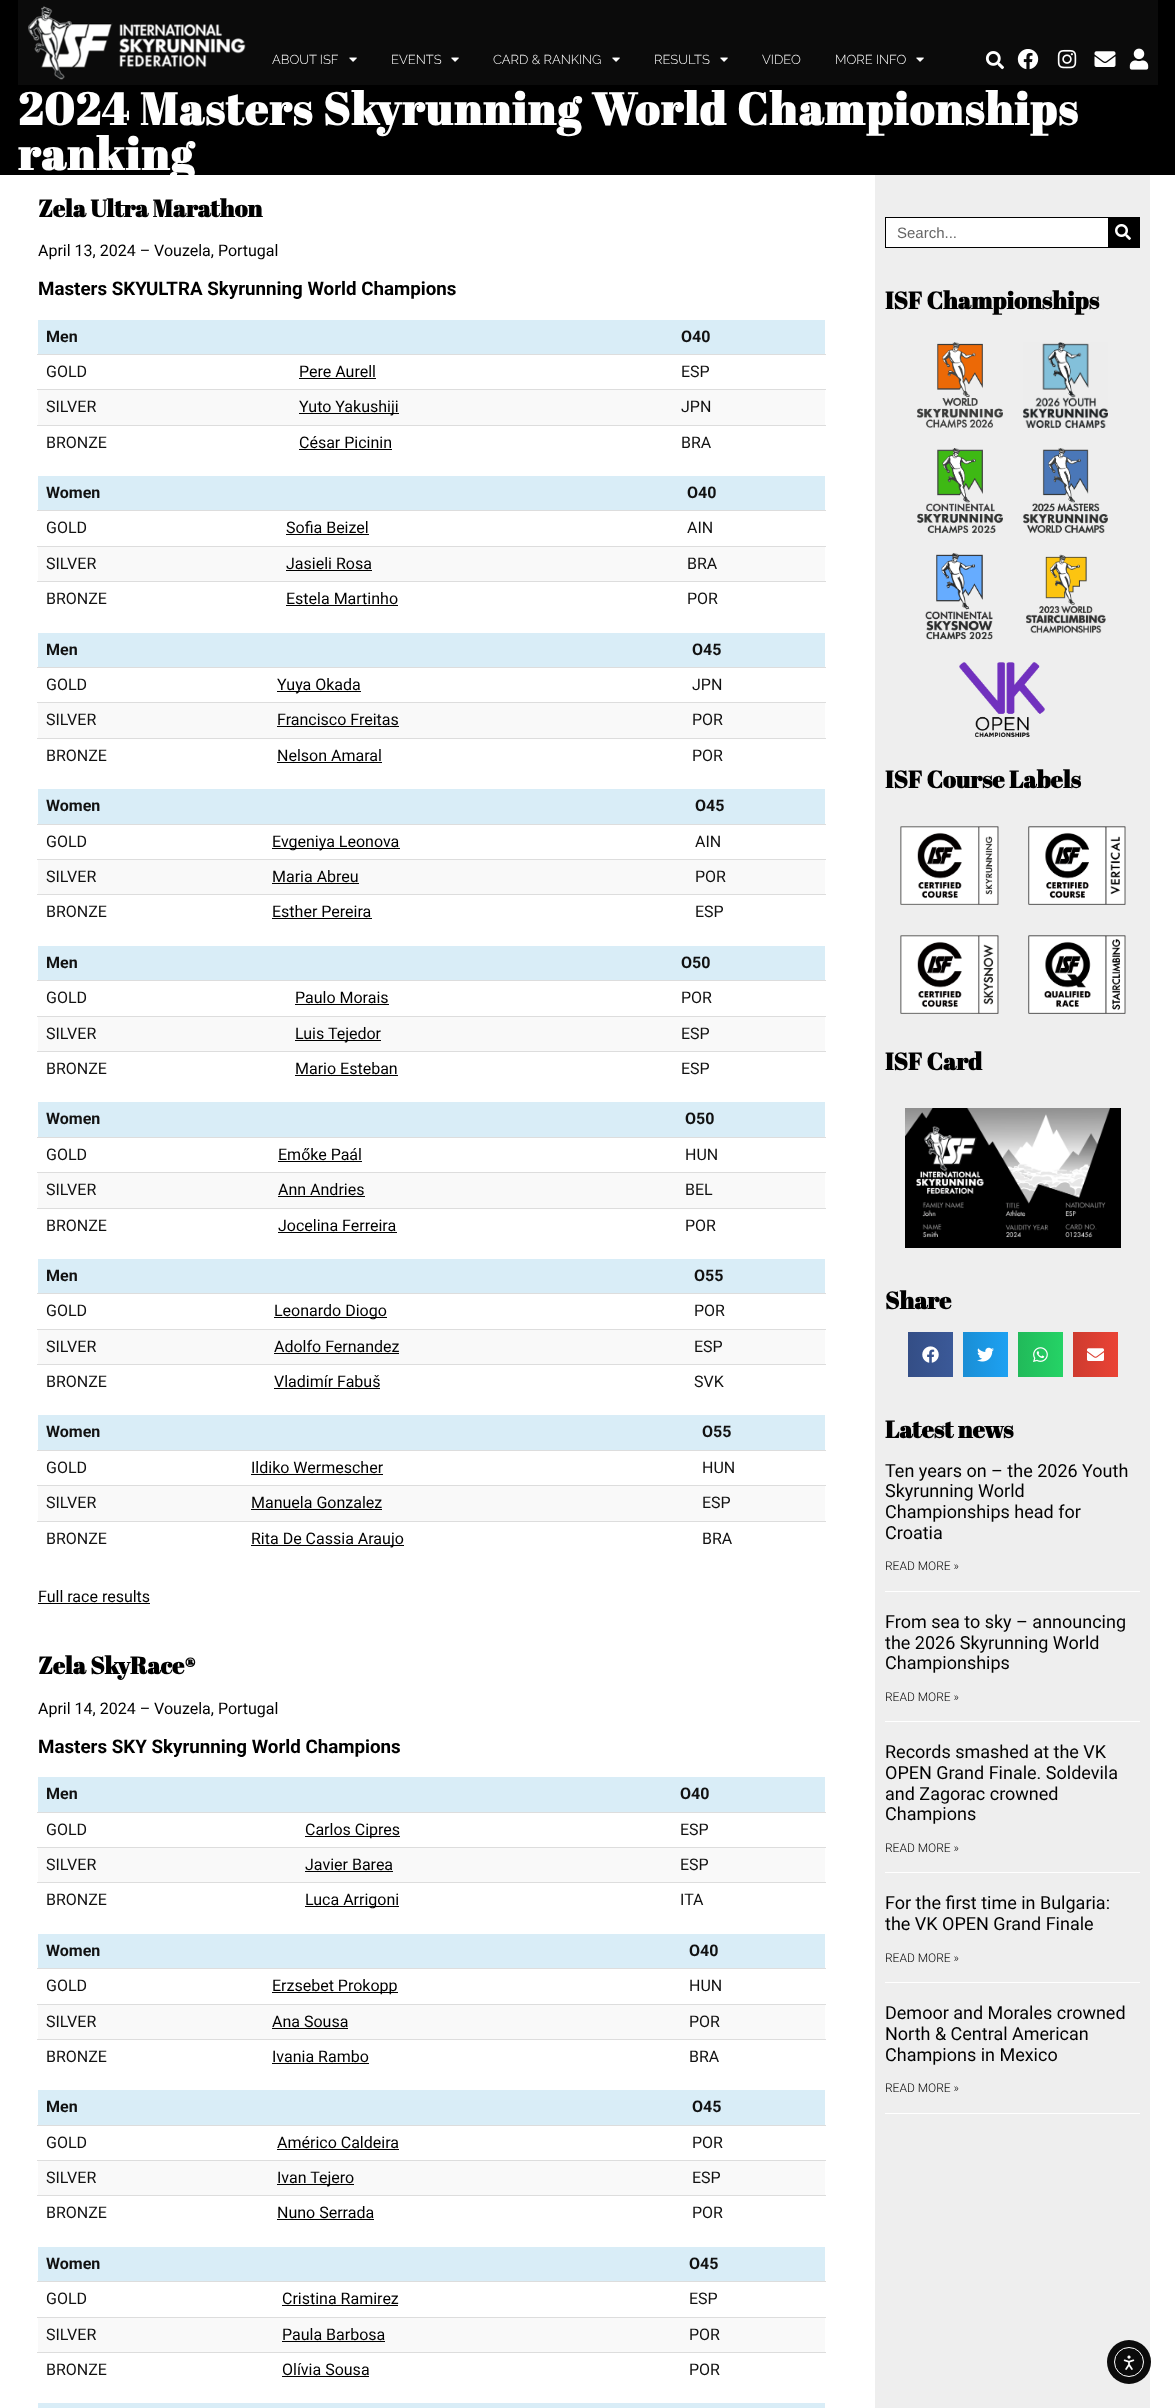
<!DOCTYPE html>
<meta charset="utf-8">
<style>body { margin: 0 } canvas { display: block }</style>
<canvas id="canvas" width="1175" height="2408"></canvas>
<script type="module">
  const canvas = document.getElementById("canvas");
  const ctx = canvas.getContext("2d");
  ctx.miterLimit = 4;
  ctx.fontKerning = "normal";
  async function loadImage(src) {
    const img = new Image();
    img.src = src;
    await img.decode();
    return img;
  }
  let gradient;

  ctx.fillStyle = "#ffffff";
  ctx.fillRect(0, 0, 1175, 2408);
  ctx.fillStyle = "#000000";
  ctx.fillRect(0, 0, 1175, 175);
  ctx.fillStyle = "#0b0b0b";
  ctx.fillRect(18, 0, 1140, 85);
  ctx.drawImage(await loadImage("img1.png"), 28, 6, 218, 74);
  ctx.font = "300 13px Raleway";
  ctx.fillStyle = "#ffffff";
  ctx.fillText("ABOUT ISF", 272, 64);
  ctx.drawImage(await loadImage("img2.png"), 349, 57, 8, 5);
  ctx.fillText("EVENTS", 391, 64);
  ctx.drawImage(await loadImage("img2.png"), 451, 57, 8, 5);
  ctx.fillText("CARD & RANKING", 493, 64);
  ctx.drawImage(await loadImage("img2.png"), 612, 57, 8, 5);
  ctx.fillText("RESULTS", 654, 64);
  ctx.drawImage(await loadImage("img2.png"), 720, 57, 8, 5);
  ctx.fillText("VIDEO", 762, 64);
  ctx.fillText("MORE INFO", 835, 64);
  ctx.drawImage(await loadImage("img2.png"), 916, 57, 8, 5);
  ctx.drawImage(await loadImage("img3.png"), 985, 51, 19, 19);
  ctx.drawImage(await loadImage("img4.png"), 1017, 49, 22, 21);
  ctx.drawImage(await loadImage("img5.png"), 1057, 49, 20, 20);
  ctx.drawImage(await loadImage("img6.png"), 1094, 51, 22, 16);
  ctx.drawImage(await loadImage("img7.png"), 1129, 48, 20, 22);
  ctx.letterSpacing = "1.4px";
  ctx.font = "bold 45px Abril Fatface";
  ctx.fillText("2024 Masters Skyrunning World Championships", 18, 125);
  ctx.fillText("ranking", 18, 170);
  ctx.letterSpacing = "0px";
  ctx.font = "bold 24px Abril Fatface";
  ctx.fillStyle = "#000000";
  ctx.fillText("Zela Ultra Marathon", 38, 217);
  ctx.font = "16px Roboto";
  ctx.fillText("April 13, 2024 – Vouzela, Portugal", 38, 256);
  ctx.font = "bold 18.75px Roboto";
  ctx.fillText("Masters SKYULTRA Skyrunning World Champions", 38, 295);
  ctx.fillStyle = "#d9edf7";
  ctx.fillRect(38, 320, 787, 34);
  ctx.font = "bold 16px Roboto";
  ctx.fillStyle = "#111111";
  ctx.fillText("Men", 46, 342);
  ctx.fillText("O40", 681, 342);
  ctx.font = "16px Roboto";
  ctx.fillText("GOLD", 46, 377);
  ctx.fillStyle = "#000000";
  ctx.fillText("Pere Aurell", 299, 377);
  ctx.fillRect(299, 378, 77, 1);
  ctx.fillStyle = "#dddddd";
  ctx.fillRect(37, 354, 789, 1);
  ctx.fillStyle = "#111111";
  ctx.fillText("ESP", 681, 377);
  ctx.fillStyle = "#f9f9f9";
  ctx.fillRect(38, 390, 787, 35);
  ctx.fillStyle = "#111111";
  ctx.fillText("SILVER", 46, 412);
  ctx.fillStyle = "#000000";
  ctx.fillRect(299, 413, 100, 1);
  ctx.fillText("Yuto Yakushiji", 299, 412);
  ctx.fillStyle = "#dddddd";
  ctx.fillRect(37, 389, 789, 1);
  ctx.fillStyle = "#111111";
  ctx.fillText("JPN", 681, 412);
  ctx.fillText("BRONZE", 46, 448);
  ctx.fillStyle = "#000000";
  ctx.fillText("César Picinin", 299, 448);
  ctx.fillRect(299, 449, 93, 1);
  ctx.fillStyle = "#dddddd";
  ctx.fillRect(37, 425, 789, 1);
  ctx.fillStyle = "#111111";
  ctx.fillText("BRA", 681, 448);
  ctx.fillStyle = "#d9edf7";
  ctx.fillRect(38, 476, 787, 34);
  ctx.font = "bold 16px Roboto";
  ctx.fillStyle = "#111111";
  ctx.fillText("Women", 46, 498);
  ctx.fillText("O40", 687, 498);
  ctx.font = "16px Roboto";
  ctx.fillText("GOLD", 46, 533);
  ctx.fillStyle = "#000000";
  ctx.fillText("Sofia Beizel", 286, 533);
  ctx.fillRect(286, 534, 83, 1);
  ctx.fillStyle = "#dddddd";
  ctx.fillRect(37, 510, 789, 1);
  ctx.fillStyle = "#111111";
  ctx.fillText("AIN", 687, 533);
  ctx.fillStyle = "#f9f9f9";
  ctx.fillRect(38, 547, 787, 34);
  ctx.fillStyle = "#111111";
  ctx.fillText("SILVER", 46, 569);
  ctx.fillStyle = "#000000";
  ctx.fillText("Jasieli Rosa", 286, 569);
  ctx.fillRect(286, 570, 86, 1);
  ctx.fillStyle = "#dddddd";
  ctx.fillRect(37, 546, 789, 1);
  ctx.fillStyle = "#111111";
  ctx.fillText("BRA", 687, 569);
  ctx.fillText("BRONZE", 46, 604);
  ctx.fillStyle = "#000000";
  ctx.fillText("Estela Martinho", 286, 604);
  ctx.fillRect(286, 605, 112, 1);
  ctx.fillStyle = "#dddddd";
  ctx.fillRect(37, 581, 789, 1);
  ctx.fillStyle = "#111111";
  ctx.fillText("POR", 687, 604);
  ctx.fillStyle = "#d9edf7";
  ctx.fillRect(38, 633, 787, 34);
  ctx.font = "bold 16px Roboto";
  ctx.fillStyle = "#111111";
  ctx.fillText("Men", 46, 655);
  ctx.fillText("O45", 692, 655);
  ctx.font = "16px Roboto";
  ctx.fillText("GOLD", 46, 690);
  ctx.fillStyle = "#000000";
  ctx.fillRect(277, 691, 84, 1);
  ctx.fillText("Yuya Okada", 277, 690);
  ctx.fillStyle = "#dddddd";
  ctx.fillRect(37, 667, 789, 1);
  ctx.fillStyle = "#111111";
  ctx.fillText("JPN", 692, 690);
  ctx.fillStyle = "#f9f9f9";
  ctx.fillRect(38, 703, 787, 35);
  ctx.fillStyle = "#111111";
  ctx.fillText("SILVER", 46, 725);
  ctx.fillStyle = "#000000";
  ctx.fillText("Francisco Freitas", 277, 725);
  ctx.fillRect(277, 726, 122, 1);
  ctx.fillStyle = "#dddddd";
  ctx.fillRect(37, 702, 789, 1);
  ctx.fillStyle = "#111111";
  ctx.fillText("POR", 692, 725);
  ctx.fillText("BRONZE", 46, 761);
  ctx.fillStyle = "#000000";
  ctx.fillText("Nelson Amaral", 277, 761);
  ctx.fillRect(277, 762, 105, 1);
  ctx.fillStyle = "#dddddd";
  ctx.fillRect(37, 738, 789, 1);
  ctx.fillStyle = "#111111";
  ctx.fillText("POR", 692, 761);
  ctx.fillStyle = "#d9edf7";
  ctx.fillRect(38, 789, 787, 35);
  ctx.font = "bold 16px Roboto";
  ctx.fillStyle = "#111111";
  ctx.fillText("Women", 46, 811);
  ctx.fillText("O45", 695, 811);
  ctx.font = "16px Roboto";
  ctx.fillText("GOLD", 46, 847);
  ctx.fillStyle = "#000000";
  ctx.fillRect(272, 848, 128, 1);
  ctx.fillText("Evgeniya Leonova", 272, 847);
  ctx.fillStyle = "#dddddd";
  ctx.fillRect(37, 824, 789, 1);
  ctx.fillStyle = "#111111";
  ctx.fillText("AIN", 695, 847);
  ctx.fillStyle = "#f9f9f9";
  ctx.fillRect(38, 860, 787, 34);
  ctx.fillStyle = "#111111";
  ctx.fillText("SILVER", 46, 882);
  ctx.fillStyle = "#000000";
  ctx.fillText("Maria Abreu", 272, 882);
  ctx.fillRect(272, 883, 87, 1);
  ctx.fillStyle = "#dddddd";
  ctx.fillRect(37, 859, 789, 1);
  ctx.fillStyle = "#111111";
  ctx.fillText("POR", 695, 882);
  ctx.fillText("BRONZE", 46, 917);
  ctx.fillStyle = "#000000";
  ctx.fillText("Esther Pereira", 272, 917);
  ctx.fillRect(272, 918, 100, 1);
  ctx.fillStyle = "#dddddd";
  ctx.fillRect(37, 894, 789, 1);
  ctx.fillStyle = "#111111";
  ctx.fillText("ESP", 695, 917);
  ctx.fillStyle = "#d9edf7";
  ctx.fillRect(38, 946, 787, 34);
  ctx.font = "bold 16px Roboto";
  ctx.fillStyle = "#111111";
  ctx.fillText("Men", 46, 968);
  ctx.fillText("O50", 681, 968);
  ctx.font = "16px Roboto";
  ctx.fillText("GOLD", 46, 1003);
  ctx.fillStyle = "#000000";
  ctx.fillText("Paulo Morais", 295, 1003);
  ctx.fillRect(295, 1004, 94, 1);
  ctx.fillStyle = "#dddddd";
  ctx.fillRect(37, 980, 789, 1);
  ctx.fillStyle = "#111111";
  ctx.fillText("POR", 681, 1003);
  ctx.fillStyle = "#f9f9f9";
  ctx.fillRect(38, 1017, 787, 34);
  ctx.fillStyle = "#111111";
  ctx.fillText("SILVER", 46, 1039);
  ctx.fillStyle = "#000000";
  ctx.fillRect(295, 1040, 86, 1);
  ctx.fillText("Luis Tejedor", 295, 1039);
  ctx.fillStyle = "#dddddd";
  ctx.fillRect(37, 1016, 789, 1);
  ctx.fillStyle = "#111111";
  ctx.fillText("ESP", 681, 1039);
  ctx.fillText("BRONZE", 46, 1074);
  ctx.fillStyle = "#000000";
  ctx.fillText("Mario Esteban", 295, 1074);
  ctx.fillRect(295, 1075, 103, 1);
  ctx.fillStyle = "#dddddd";
  ctx.fillRect(37, 1051, 789, 1);
  ctx.fillStyle = "#111111";
  ctx.fillText("ESP", 681, 1074);
  ctx.fillStyle = "#d9edf7";
  ctx.fillRect(38, 1102, 787, 35);
  ctx.font = "bold 16px Roboto";
  ctx.fillStyle = "#111111";
  ctx.fillText("Women", 46, 1124);
  ctx.fillText("O50", 685, 1124);
  ctx.font = "16px Roboto";
  ctx.fillText("GOLD", 46, 1160);
  ctx.fillStyle = "#000000";
  ctx.fillText("Emőke Paál", 278, 1160);
  ctx.fillRect(278, 1161, 84, 1);
  ctx.fillStyle = "#dddddd";
  ctx.fillRect(37, 1137, 789, 1);
  ctx.fillStyle = "#111111";
  ctx.fillText("HUN", 685, 1160);
  ctx.fillStyle = "#f9f9f9";
  ctx.fillRect(38, 1173, 787, 35);
  ctx.fillStyle = "#111111";
  ctx.fillText("SILVER", 46, 1195);
  ctx.fillStyle = "#000000";
  ctx.fillText("Ann Andries", 278, 1195);
  ctx.fillRect(278, 1196, 87, 1);
  ctx.fillStyle = "#dddddd";
  ctx.fillRect(37, 1172, 789, 1);
  ctx.fillStyle = "#111111";
  ctx.fillText("BEL", 685, 1195);
  ctx.fillText("BRONZE", 46, 1231);
  ctx.fillStyle = "#000000";
  ctx.fillText("Jocelina Ferreira", 278, 1231);
  ctx.fillRect(278, 1232, 119, 1);
  ctx.fillStyle = "#dddddd";
  ctx.fillRect(37, 1208, 789, 1);
  ctx.fillStyle = "#111111";
  ctx.fillText("POR", 685, 1231);
  ctx.fillStyle = "#d9edf7";
  ctx.fillRect(38, 1259, 787, 34);
  ctx.font = "bold 16px Roboto";
  ctx.fillStyle = "#111111";
  ctx.fillText("Men", 46, 1281);
  ctx.fillText("O55", 694, 1281);
  ctx.font = "16px Roboto";
  ctx.fillText("GOLD", 46, 1316);
  ctx.fillStyle = "#000000";
  ctx.fillRect(274, 1317, 113, 1);
  ctx.fillText("Leonardo Diogo", 274, 1316);
  ctx.fillStyle = "#dddddd";
  ctx.fillRect(37, 1293, 789, 1);
  ctx.fillStyle = "#111111";
  ctx.fillText("POR", 694, 1316);
  ctx.fillStyle = "#f9f9f9";
  ctx.fillRect(38, 1330, 787, 34);
  ctx.fillStyle = "#111111";
  ctx.fillText("SILVER", 46, 1352);
  ctx.fillStyle = "#000000";
  ctx.fillText("Adolfo Fernandez", 274, 1352);
  ctx.fillRect(274, 1353, 125, 1);
  ctx.fillStyle = "#dddddd";
  ctx.fillRect(37, 1329, 789, 1);
  ctx.fillStyle = "#111111";
  ctx.fillText("ESP", 694, 1352);
  ctx.fillText("BRONZE", 46, 1387);
  ctx.fillStyle = "#000000";
  ctx.fillText("Vladimír Fabuš", 274, 1387);
  ctx.fillRect(274, 1388, 106, 1);
  ctx.fillStyle = "#dddddd";
  ctx.fillRect(37, 1364, 789, 1);
  ctx.fillStyle = "#111111";
  ctx.fillText("SVK", 694, 1387);
  ctx.fillStyle = "#d9edf7";
  ctx.fillRect(38, 1415, 787, 35);
  ctx.font = "bold 16px Roboto";
  ctx.fillStyle = "#111111";
  ctx.fillText("Women", 46, 1437);
  ctx.fillText("O55", 702, 1437);
  ctx.font = "16px Roboto";
  ctx.fillText("GOLD", 46, 1473);
  ctx.fillStyle = "#000000";
  ctx.fillText("Ildiko Wermescher", 251, 1473);
  ctx.fillRect(251, 1474, 132, 1);
  ctx.fillStyle = "#dddddd";
  ctx.fillRect(37, 1450, 789, 1);
  ctx.fillStyle = "#111111";
  ctx.fillText("HUN", 702, 1473);
  ctx.fillStyle = "#f9f9f9";
  ctx.fillRect(38, 1486, 787, 35);
  ctx.fillStyle = "#111111";
  ctx.fillText("SILVER", 46, 1508);
  ctx.fillStyle = "#000000";
  ctx.fillText("Manuela Gonzalez", 251, 1508);
  ctx.fillRect(251, 1509, 131, 1);
  ctx.fillStyle = "#dddddd";
  ctx.fillRect(37, 1485, 789, 1);
  ctx.fillStyle = "#111111";
  ctx.fillText("ESP", 702, 1508);
  ctx.fillText("BRONZE", 46, 1544);
  ctx.fillStyle = "#000000";
  ctx.fillRect(251, 1545, 153, 1);
  ctx.fillText("Rita De Cassia Araujo", 251, 1544);
  ctx.fillStyle = "#dddddd";
  ctx.fillRect(37, 1521, 789, 1);
  ctx.fillStyle = "#111111";
  ctx.fillText("BRA", 702, 1544);
  ctx.fillStyle = "#000000";
  ctx.fillText("Full race results", 38, 1602);
  ctx.fillRect(38, 1603, 112, 1);
  ctx.font = "bold 24px Abril Fatface";
  ctx.fillText("Zela SkyRace®", 38, 1674);
  ctx.font = "16px Roboto";
  ctx.fillText("April 14, 2024 – Vouzela, Portugal", 38, 1714);
  ctx.font = "bold 18.75px Roboto";
  ctx.fillText("Masters SKY Skyrunning World Champions", 38, 1753);
  ctx.fillStyle = "#d9edf7";
  ctx.fillRect(38, 1777, 787, 35);
  ctx.font = "bold 16px Roboto";
  ctx.fillStyle = "#111111";
  ctx.fillText("Men", 46, 1799);
  ctx.fillText("O40", 680, 1799);
  ctx.font = "16px Roboto";
  ctx.fillText("GOLD", 46, 1835);
  ctx.fillStyle = "#000000";
  ctx.fillRect(305, 1836, 95, 1);
  ctx.fillText("Carlos Cipres", 305, 1835);
  ctx.fillStyle = "#dddddd";
  ctx.fillRect(37, 1812, 789, 1);
  ctx.fillStyle = "#111111";
  ctx.fillText("ESP", 680, 1835);
  ctx.fillStyle = "#f9f9f9";
  ctx.fillRect(38, 1848, 787, 34);
  ctx.fillStyle = "#111111";
  ctx.fillText("SILVER", 46, 1870);
  ctx.fillStyle = "#000000";
  ctx.fillText("Javier Barea", 305, 1870);
  ctx.fillRect(305, 1871, 88, 1);
  ctx.fillStyle = "#dddddd";
  ctx.fillRect(37, 1847, 789, 1);
  ctx.fillStyle = "#111111";
  ctx.fillText("ESP", 680, 1870);
  ctx.fillText("BRONZE", 46, 1905);
  ctx.fillStyle = "#000000";
  ctx.fillRect(305, 1906, 94, 1);
  ctx.fillText("Luca Arrigoni", 305, 1905);
  ctx.fillStyle = "#dddddd";
  ctx.fillRect(37, 1882, 789, 1);
  ctx.fillStyle = "#111111";
  ctx.fillText("ITA", 680, 1905);
  ctx.fillStyle = "#d9edf7";
  ctx.fillRect(38, 1934, 787, 34);
  ctx.font = "bold 16px Roboto";
  ctx.fillStyle = "#111111";
  ctx.fillText("Women", 46, 1956);
  ctx.fillText("O40", 689, 1956);
  ctx.font = "16px Roboto";
  ctx.fillText("GOLD", 46, 1991);
  ctx.fillStyle = "#000000";
  ctx.fillRect(272, 1992, 126, 1);
  ctx.fillText("Erzsebet Prokopp", 272, 1991);
  ctx.fillStyle = "#dddddd";
  ctx.fillRect(37, 1968, 789, 1);
  ctx.fillStyle = "#111111";
  ctx.fillText("HUN", 689, 1991);
  ctx.fillStyle = "#f9f9f9";
  ctx.fillRect(38, 2005, 787, 34);
  ctx.fillStyle = "#111111";
  ctx.fillText("SILVER", 46, 2027);
  ctx.fillStyle = "#000000";
  ctx.fillText("Ana Sousa", 272, 2027);
  ctx.fillRect(272, 2028, 76, 1);
  ctx.fillStyle = "#dddddd";
  ctx.fillRect(37, 2004, 789, 1);
  ctx.fillStyle = "#111111";
  ctx.fillText("POR", 689, 2027);
  ctx.fillText("BRONZE", 46, 2062);
  ctx.fillStyle = "#000000";
  ctx.fillText("Ivania Rambo", 272, 2062);
  ctx.fillRect(272, 2063, 97, 1);
  ctx.fillStyle = "#dddddd";
  ctx.fillRect(37, 2039, 789, 1);
  ctx.fillStyle = "#111111";
  ctx.fillText("BRA", 689, 2062);
  ctx.fillStyle = "#d9edf7";
  ctx.fillRect(38, 2090, 787, 35);
  ctx.font = "bold 16px Roboto";
  ctx.fillStyle = "#111111";
  ctx.fillText("Men", 46, 2112);
  ctx.fillText("O45", 692, 2112);
  ctx.font = "16px Roboto";
  ctx.fillText("GOLD", 46, 2148);
  ctx.fillStyle = "#000000";
  ctx.fillText("Américo Caldeira", 277, 2148);
  ctx.fillRect(277, 2149, 122, 1);
  ctx.fillStyle = "#dddddd";
  ctx.fillRect(37, 2125, 789, 1);
  ctx.fillStyle = "#111111";
  ctx.fillText("POR", 692, 2148);
  ctx.fillStyle = "#f9f9f9";
  ctx.fillRect(38, 2161, 787, 34);
  ctx.fillStyle = "#111111";
  ctx.fillText("SILVER", 46, 2183);
  ctx.fillStyle = "#000000";
  ctx.fillRect(277, 2184, 77, 1);
  ctx.fillText("Ivan Tejero", 277, 2183);
  ctx.fillStyle = "#dddddd";
  ctx.fillRect(37, 2160, 789, 1);
  ctx.fillStyle = "#111111";
  ctx.fillText("ESP", 692, 2183);
  ctx.fillText("BRONZE", 46, 2218);
  ctx.fillStyle = "#000000";
  ctx.fillText("Nuno Serrada", 277, 2218);
  ctx.fillRect(277, 2219, 97, 1);
  ctx.fillStyle = "#dddddd";
  ctx.fillRect(37, 2195, 789, 1);
  ctx.fillStyle = "#111111";
  ctx.fillText("POR", 692, 2218);
  ctx.fillStyle = "#d9edf7";
  ctx.fillRect(38, 2247, 787, 34);
  ctx.font = "bold 16px Roboto";
  ctx.fillStyle = "#111111";
  ctx.fillText("Women", 46, 2269);
  ctx.fillText("O45", 689, 2269);
  ctx.font = "16px Roboto";
  ctx.fillText("GOLD", 46, 2304);
  ctx.fillStyle = "#000000";
  ctx.fillText("Cristina Ramirez", 282, 2304);
  ctx.fillRect(282, 2305, 116, 1);
  ctx.fillStyle = "#dddddd";
  ctx.fillRect(37, 2281, 789, 1);
  ctx.fillStyle = "#111111";
  ctx.fillText("ESP", 689, 2304);
  ctx.fillStyle = "#f9f9f9";
  ctx.fillRect(38, 2318, 787, 34);
  ctx.fillStyle = "#111111";
  ctx.fillText("SILVER", 46, 2340);
  ctx.fillStyle = "#000000";
  ctx.fillText("Paula Barbosa", 282, 2340);
  ctx.fillRect(282, 2341, 103, 1);
  ctx.fillStyle = "#dddddd";
  ctx.fillRect(37, 2317, 789, 1);
  ctx.fillStyle = "#111111";
  ctx.fillText("POR", 689, 2340);
  ctx.fillText("BRONZE", 46, 2375);
  ctx.fillStyle = "#000000";
  ctx.fillText("Olívia Sousa", 282, 2375);
  ctx.fillRect(282, 2376, 87, 1);
  ctx.fillStyle = "#dddddd";
  ctx.fillRect(37, 2352, 789, 1);
  ctx.fillStyle = "#111111";
  ctx.fillText("POR", 689, 2375);
  ctx.fillStyle = "#d9edf7";
  ctx.fillRect(38, 2403, 787, 5);
  ctx.fillStyle = "#eeeeee";
  ctx.fillRect(875, 175, 275, 2233);
  ctx.fillStyle = "#ffffff";
  ctx.fillRect(886, 218, 222, 29);
  ctx.strokeStyle = "#000000";
  ctx.strokeRect(885.5, 217.5, 254, 30);
  ctx.font = "15px Liberation Sans";
  ctx.fillStyle = "#666666";
  ctx.fillText("Search...", 897, 238);
  ctx.fillStyle = "#000000";
  ctx.fillRect(1108, 218, 31, 29);
  ctx.drawImage(await loadImage("img8.png"), 1115, 224, 16, 16);
  ctx.font = "bold 24px Abril Fatface";
  ctx.fillText("ISF Championships", 885, 309);
  ctx.drawImage(await loadImage("img9.png"), 917, 342, 86, 86);
  ctx.drawImage(await loadImage("img10.png"), 1023, 342, 85, 86);
  ctx.drawImage(await loadImage("img11.png"), 917, 448, 86, 85);
  ctx.drawImage(await loadImage("img12.png"), 1023, 448, 85, 85);
  ctx.drawImage(await loadImage("img13.png"), 925, 553, 68, 87);
  ctx.drawImage(await loadImage("img14.png"), 1026, 554, 80, 80);
  ctx.drawImage(await loadImage("img15.png"), 959, 662, 86, 75);
  ctx.fillText("ISF Course Labels", 885, 788);
  ctx.drawImage(await loadImage("img16.png"), 900, 826, 99, 79);
  ctx.drawImage(await loadImage("img17.png"), 1028, 826, 98, 79);
  ctx.drawImage(await loadImage("img18.png"), 900, 935, 99, 79);
  ctx.drawImage(await loadImage("img19.png"), 1028, 935, 98, 79);
  ctx.fillText("ISF Card", 885, 1070);
  ctx.drawImage(await loadImage("img20.png"), 905, 1108, 216, 140);
  ctx.fillText("Share", 885, 1309);
  gradient = ctx.createLinearGradient(908, 1355, 953, 1355);
  gradient.addColorStop(0, "#344e86");
  gradient.addColorStop(1, "#3b5998");
  ctx.fillStyle = gradient;
  ctx.fillRect(908, 1332, 45, 45);
  ctx.drawImage(await loadImage("img21.png"), 922, 1346, 17, 17);
  gradient = ctx.createLinearGradient(963, 1355, 1008, 1355);
  gradient.addColorStop(0, "#1a8ed5");
  gradient.addColorStop(1, "#1da1f2");
  ctx.fillStyle = gradient;
  ctx.fillRect(963, 1332, 45, 45);
  ctx.drawImage(await loadImage("img22.png"), 977, 1347, 17, 15);
  gradient = ctx.createLinearGradient(1018, 1355, 1063, 1355);
  gradient.addColorStop(0, "#21ba5a");
  gradient.addColorStop(1, "#25d366");
  ctx.fillStyle = gradient;
  ctx.fillRect(1018, 1332, 45, 45);
  ctx.drawImage(await loadImage("img23.png"), 1033, 1347, 15, 15);
  gradient = ctx.createLinearGradient(1073, 1355, 1118, 1355);
  gradient.addColorStop(0, "#ce3b2f");
  gradient.addColorStop(1, "#ea4335");
  ctx.fillStyle = gradient;
  ctx.fillRect(1073, 1332, 45, 45);
  ctx.drawImage(await loadImage("img24.png"), 1087, 1348, 17, 13);
  ctx.fillStyle = "#000000";
  ctx.fillText("Latest news", 885, 1438);
  ctx.fillStyle = "#ffffff";
  ctx.fillRect(885, 1591, 255, 1);
  ctx.font = "18px Roboto";
  ctx.fillStyle = "#000000";
  ctx.fillText("Ten years on – the 2026 Youth", 885, 1477);
  ctx.fillText("Skyrunning World", 885, 1497);
  ctx.fillText("Championships head for", 885, 1518);
  ctx.fillText("Croatia", 885, 1539);
  ctx.font = "300 12px Roboto";
  ctx.fillText("READ MORE »", 885, 1570);
  ctx.fillStyle = "#ffffff";
  ctx.fillRect(885, 1721, 255, 1);
  ctx.font = "18px Roboto";
  ctx.fillStyle = "#000000";
  ctx.fillText("From sea to sky – announcing", 885, 1628);
  ctx.fillText("the 2026 Skyrunning World", 885, 1649);
  ctx.fillText("Championships", 885, 1669);
  ctx.font = "300 12px Roboto";
  ctx.fillText("READ MORE »", 885, 1701);
  ctx.fillStyle = "#ffffff";
  ctx.fillRect(885, 1872, 255, 1);
  ctx.font = "18px Roboto";
  ctx.fillStyle = "#000000";
  ctx.fillText("Records smashed at the VK", 885, 1758);
  ctx.fillText("OPEN Grand Finale. Soldevila", 885, 1779);
  ctx.fillText("and Zagorac crowned", 885, 1800);
  ctx.fillText("Champions", 885, 1820);
  ctx.font = "300 12px Roboto";
  ctx.fillText("READ MORE »", 885, 1852);
  ctx.fillStyle = "#ffffff";
  ctx.fillRect(885, 1982, 255, 1);
  ctx.font = "18px Roboto";
  ctx.fillStyle = "#000000";
  ctx.fillText("For the first time in Bulgaria:", 885, 1909);
  ctx.fillText("the VK OPEN Grand Finale", 885, 1930);
  ctx.font = "300 12px Roboto";
  ctx.fillText("READ MORE »", 885, 1962);
  ctx.fillStyle = "#ffffff";
  ctx.fillRect(885, 2113, 255, 1);
  ctx.font = "18px Roboto";
  ctx.fillStyle = "#000000";
  ctx.fillText("Demoor and Morales crowned", 885, 2019);
  ctx.fillText("North & Central American", 885, 2040);
  ctx.fillText("Champions in Mexico", 885, 2061);
  ctx.font = "300 12px Roboto";
  ctx.fillText("READ MORE »", 885, 2092);
  ctx.fillStyle = "#0b0b0b";
  ctx.beginPath();
  ctx.arc(1129, 2362, 22, 0, Math.PI * 2);
  ctx.fill();
  ctx.beginPath();
  ctx.arc(1129, 2362, 14.5, 0, Math.PI * 2);
  ctx.strokeStyle = "#ffffff";
  ctx.stroke();
  ctx.drawImage(await loadImage("img25.png"), 1123, 2355, 12, 15);
</script>
